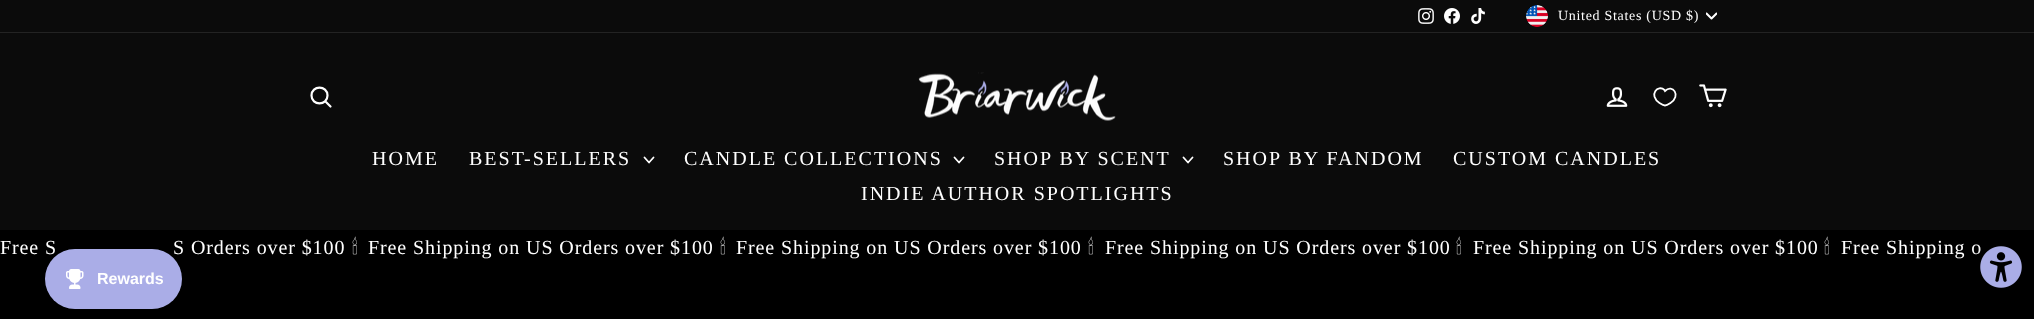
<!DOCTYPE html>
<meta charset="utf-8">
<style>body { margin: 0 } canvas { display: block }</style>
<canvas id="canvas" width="2034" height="319"></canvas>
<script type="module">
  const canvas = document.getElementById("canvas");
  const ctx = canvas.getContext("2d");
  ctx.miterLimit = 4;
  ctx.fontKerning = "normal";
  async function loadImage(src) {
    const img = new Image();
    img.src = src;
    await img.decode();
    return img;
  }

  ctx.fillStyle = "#000000";
  ctx.fillRect(0, 0, 2034, 319);
  ctx.fillStyle = "#0b0b0b";
  ctx.fillRect(0, 0, 2034, 32);
  ctx.drawImage(await loadImage("img1.png"), 1418, 8, 16, 16);
  ctx.drawImage(await loadImage("img2.png"), 1444, 8, 16, 16);
  ctx.drawImage(await loadImage("img3.png"), 1471, 8, 14, 16);
  ctx.drawImage(await loadImage("img4.png"), 1526, 5, 22, 22);
  ctx.letterSpacing = "0.7px";
  ctx.font = "14px Liberation Serif";
  ctx.fillStyle = "#ffffff";
  ctx.fillText("United States (USD $)", 1558, 20);
  ctx.save();
  ctx.beginPath();
  ctx.rect(1706, 11, 11, 11);
  ctx.clip();
  ctx.beginPath();
  ctx.moveTo(1706.5, 13.5);
  ctx.lineTo(1711.5, 18.5);
  ctx.lineTo(1716.5, 13.5);
  ctx.strokeStyle = "#ffffff";
  ctx.lineWidth = 2;
  ctx.lineCap = "round";
  ctx.lineJoin = "round";
  ctx.stroke();
  ctx.restore();
  ctx.fillStyle = "#0b0b0b";
  ctx.fillRect(0, 33, 2034, 197);
  ctx.fillStyle = "#232323";
  ctx.fillRect(0, 32, 2034, 1);
  ctx.beginPath();
  ctx.moveTo(327.5, 95.5);
  ctx.bezierCurveTo(327.5, 106, 311.5, 106, 311.5, 95.5);
  ctx.bezierCurveTo(311.5, 85, 327.5, 85, 327.5, 95.5);
  ctx.closePath();
  ctx.moveTo(330.5, 106.5);
  ctx.lineTo(325.5, 101.5);
  ctx.strokeStyle = "#ffffff";
  ctx.lineWidth = 2.2;
  ctx.lineCap = "round";
  ctx.lineJoin = "round";
  ctx.stroke();
  ctx.drawImage(await loadImage("img5.png"), 918, 72, 198, 49);
  ctx.drawImage(await loadImage("img6.png"), 1606, 87, 22, 20);
  ctx.beginPath();
  ctx.moveTo(1664.5, 90);
  ctx.lineTo(1665, 91);
  ctx.bezierCurveTo(1672.5, 83.5, 1681.5, 95.5, 1670.5, 103);
  ctx.bezierCurveTo(1669, 104, 1667, 105.5, 1665, 105.5);
  ctx.bezierCurveTo(1663, 105.5, 1661, 104, 1659.5, 103);
  ctx.bezierCurveTo(1648, 95, 1658, 84, 1664.5, 90);
  ctx.closePath();
  ctx.lineWidth = 1.8;
  ctx.lineCap = "butt";
  ctx.lineJoin = "miter";
  ctx.stroke();
  ctx.drawImage(await loadImage("img7.png"), 1699, 84, 28, 24);
  ctx.letterSpacing = "2px";
  ctx.font = "20px Liberation Serif";
  ctx.fillStyle = "#ffffff";
  ctx.fillText("HOME", 372, 165);
  ctx.fillText("BEST-SELLERS", 469, 165);
  ctx.beginPath();
  ctx.moveTo(644.5, 157.5);
  ctx.lineTo(649, 162.5);
  ctx.lineTo(653.5, 157.5);
  ctx.lineCap = "round";
  ctx.lineJoin = "round";
  ctx.stroke();
  ctx.fillText("CANDLE COLLECTIONS", 684, 165);
  ctx.beginPath();
  ctx.moveTo(954.5, 157.5);
  ctx.lineTo(959, 162.5);
  ctx.lineTo(963.5, 157.5);
  ctx.stroke();
  ctx.fillText("SHOP BY SCENT", 994, 165);
  ctx.beginPath();
  ctx.moveTo(1183.5, 157.5);
  ctx.lineTo(1188, 162.5);
  ctx.lineTo(1192.5, 157.5);
  ctx.stroke();
  ctx.fillText("SHOP BY FANDOM", 1223, 165);
  ctx.fillText("CUSTOM CANDLES", 1453, 165);
  ctx.fillText("INDIE AUTHOR SPOTLIGHTS", 861, 200);
  ctx.letterSpacing = "0.9px";
  ctx.fillText("Free S", 0, 254);
  ctx.fillText("S Orders over $100", 173, 254);
  ctx.font = "20px FreeSerif";
  ctx.fillText("🕯", 352, 254);
  ctx.font = "20px Liberation Serif";
  ctx.fillText("Free Shipping on US Orders over $100", 368, 254);
  ctx.font = "20px FreeSerif";
  ctx.fillText("🕯", 720, 254);
  ctx.font = "20px Liberation Serif";
  ctx.fillText("Free Shipping on US Orders over $100", 736, 254);
  ctx.font = "20px FreeSerif";
  ctx.fillText("🕯", 1088, 254);
  ctx.font = "20px Liberation Serif";
  ctx.fillText("Free Shipping on US Orders over $100", 1105, 254);
  ctx.font = "20px FreeSerif";
  ctx.fillText("🕯", 1456, 254);
  ctx.font = "20px Liberation Serif";
  ctx.fillText("Free Shipping on US Orders over $100", 1473, 254);
  ctx.font = "20px FreeSerif";
  ctx.fillText("🕯", 1824, 254);
  ctx.font = "20px Liberation Serif";
  ctx.fillText("Free Shipping o", 1841, 254);
  ctx.fillStyle = "#aaade7";
  ctx.beginPath();
  ctx.roundRect(45, 249, 137, 60, 30);
  ctx.fill();
  ctx.drawImage(await loadImage("img8.png"), 66, 269, 18, 20);
  ctx.letterSpacing = "0px";
  ctx.font = "bold 16px Liberation Sans";
  ctx.fillStyle = "#ffffff";
  ctx.fillText("Rewards", 97, 284);
  ctx.save();
  ctx.beginPath();
  ctx.moveTo(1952, 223);
  ctx.lineTo(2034, 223);
  ctx.lineTo(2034, 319);
  ctx.lineTo(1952, 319);
  ctx.closePath();
  ctx.moveTo(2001, 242);
  ctx.bezierCurveTo(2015, 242, 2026, 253, 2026, 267);
  ctx.bezierCurveTo(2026, 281, 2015, 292, 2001, 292);
  ctx.bezierCurveTo(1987, 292, 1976, 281, 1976, 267);
  ctx.bezierCurveTo(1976, 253, 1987, 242, 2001, 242);
  ctx.closePath();
  ctx.clip("evenodd");
  ctx.fillStyle = "rgba(0, 0, 0, 0.3)";
  ctx.filter = "blur(7.5px)";
  ctx.beginPath();
  ctx.roundRect(1976, 247, 50, 50, 25);
  ctx.fill();
  ctx.filter = "none";
  ctx.restore();
  ctx.drawImage(await loadImage("img9.png"), 1980, 242, 43, 46);
</script>
